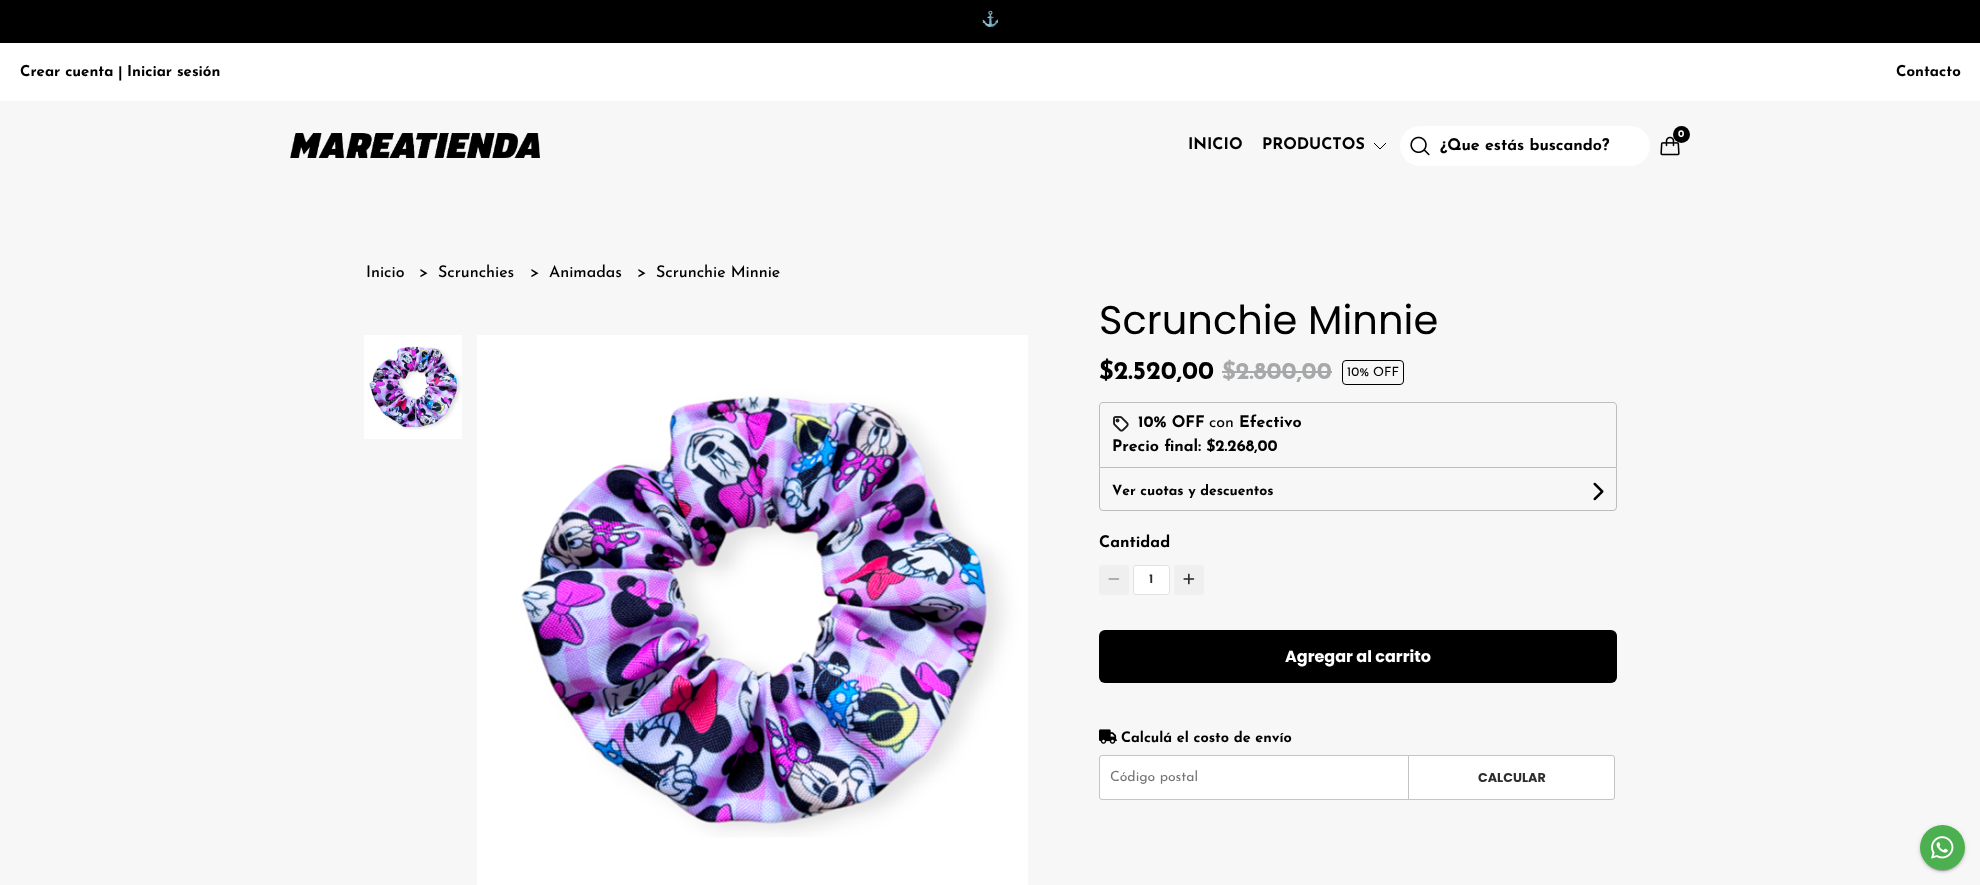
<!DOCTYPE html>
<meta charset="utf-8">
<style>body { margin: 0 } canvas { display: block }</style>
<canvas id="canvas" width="1980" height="885"></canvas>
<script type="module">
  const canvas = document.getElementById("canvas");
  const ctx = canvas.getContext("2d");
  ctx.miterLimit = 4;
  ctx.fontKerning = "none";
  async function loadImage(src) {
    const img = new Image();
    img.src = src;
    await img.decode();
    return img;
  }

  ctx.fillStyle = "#f7f7f7";
  ctx.fillRect(0, 0, 1980, 885);
  ctx.fillStyle = "#000000";
  ctx.fillRect(0, 0, 1980, 43);
  ctx.font = "15px Noto Color Emoji";
  ctx.fillStyle = "#ffffff";
  ctx.fillText("⚓", 981, 24);
  ctx.fillRect(0, 43, 1980, 58);
  ctx.font = "bold 15px Josefin Sans";
  ctx.fillStyle = "#000000";
  ctx.fillText("Crear cuenta", 20, 76);
  ctx.fillText("|", 118, 77);
  ctx.fillText("Iniciar sesión", 127, 76);
  ctx.fillText("Contacto", 1896, 76);
  ctx.drawImage(await loadImage("img1.png"), 290, 133, 250, 25);
  ctx.drawImage(await loadImage("img2.png"), 1660, 136, 20, 20);
  ctx.beginPath();
  ctx.arc(1681.5, 134.5, 8.5, 0, Math.PI * 2);
  ctx.fill();
  ctx.font = "bold 10px Josefin Sans";
  ctx.fillStyle = "#ffffff";
  ctx.fillText("0", 1678, 137);
  ctx.font = "bold 16px Josefin Sans";
  ctx.fillStyle = "#000000";
  ctx.fillText("INICIO", 1188, 149);
  ctx.fillText("PRODUCTOS", 1262, 149);
  ctx.beginPath();
  ctx.moveTo(1386, 143);
  ctx.lineTo(1380, 149);
  ctx.lineTo(1374, 143);
  ctx.strokeStyle = "#000000";
  ctx.stroke();
  ctx.fillStyle = "#ffffff";
  ctx.beginPath();
  ctx.roundRect(1400, 126, 250, 40, 20);
  ctx.fill();
  ctx.drawImage(await loadImage("img3.png"), 1410, 136, 20, 20);
  ctx.save();
  ctx.beginPath();
  ctx.rect(1406, 138, 238, 16);
  ctx.clip();
  ctx.fillStyle = "#000000";
  ctx.fillText("¿Que estás buscando?", 1440, 150);
  ctx.restore();
  ctx.font = "500 16px Josefin Sans";
  ctx.fillStyle = "#000000";
  ctx.fillText("Inicio", 366, 277);
  ctx.fillText(">", 419, 277);
  ctx.fillText("Scrunchies", 438, 277);
  ctx.fillText(">", 530, 277);
  ctx.fillText("Animadas", 549, 277);
  ctx.fillText(">", 637, 277);
  ctx.fillText("Scrunchie Minnie", 656, 277);
  ctx.drawImage(await loadImage("img4.png"), 364, 335, 98, 104);
  ctx.drawImage(await loadImage("img5.png"), 477, 335, 551, 550);
  ctx.font = "40px Poppins";
  ctx.fillText("Scrunchie Minnie", 1099, 334);
  ctx.font = "bold 25.5px Josefin Sans";
  ctx.fillText("$2.520,00", 1099, 379);
  ctx.font = "bold 24px Josefin Sans";
  ctx.fillStyle = "#a7a8aa";
  ctx.fillText("$2.800,00", 1222, 379);
  ctx.fillRect(1222, 371, 110, 2);
  ctx.beginPath();
  ctx.roundRect(1342.5, 360.5, 61, 24, 3.5);
  ctx.stroke();
  ctx.font = "12.75px Josefin Sans";
  ctx.fillStyle = "#000000";
  ctx.fillText("10% OFF", 1347, 376);
  ctx.fillStyle = "#bdbdbd";
  ctx.beginPath();
  ctx.moveTo(1103, 402);
  ctx.lineTo(1613, 402);
  ctx.bezierCurveTo(1615, 402, 1617, 404, 1617, 406);
  ctx.lineTo(1617, 467);
  ctx.lineTo(1099, 467);
  ctx.lineTo(1099, 406);
  ctx.bezierCurveTo(1099, 404, 1101, 402, 1103, 402);
  ctx.closePath();
  ctx.moveTo(1103, 403);
  ctx.lineTo(1613, 403);
  ctx.bezierCurveTo(1615, 403, 1616, 404, 1616, 406);
  ctx.lineTo(1616, 467);
  ctx.lineTo(1100, 467);
  ctx.lineTo(1100, 406);
  ctx.bezierCurveTo(1100, 404, 1101, 403, 1103, 403);
  ctx.closePath();
  ctx.fill("evenodd");
  ctx.drawImage(await loadImage("img6.png"), 1113, 416, 16, 16);
  ctx.font = "bold 16px Josefin Sans";
  ctx.fillStyle = "#000000";
  ctx.fillText("10% OFF", 1138, 427);
  ctx.font = "16px Josefin Sans";
  ctx.fillText("con", 1209, 427);
  ctx.font = "bold 16px Josefin Sans";
  ctx.fillText("Efectivo", 1239, 427);
  ctx.fillText("Precio final: $2.268,00", 1112, 451);
  ctx.beginPath();
  ctx.roundRect(1099.5, 467.5, 517, 43, [0, 0, 3.5, 3.5]);
  ctx.strokeStyle = "#bdbdbd";
  ctx.stroke();
  ctx.font = "bold 14px Josefin Sans";
  ctx.fillText("Ver cuotas y descuentos", 1112, 495);
  ctx.drawImage(await loadImage("img7.png"), 1593, 482, 11, 19);
  ctx.font = "bold 16px Josefin Sans";
  ctx.fillText("Cantidad", 1099, 547);
  ctx.fillStyle = "#efefef";
  ctx.beginPath();
  ctx.roundRect(1099, 565, 30, 30, 3);
  ctx.fill();
  ctx.drawImage(await loadImage("img8.png"), 1108, 578, 12, 2);
  ctx.fillStyle = "#ffffff";
  ctx.beginPath();
  ctx.roundRect(1133.5, 565.5, 36, 29, 2.5);
  ctx.fill();
  ctx.strokeStyle = "#e1e1e1";
  ctx.stroke();
  ctx.font = "bold 12.75px Josefin Sans";
  ctx.fillStyle = "#2e2e2e";
  ctx.fillText("1", 1149, 583);
  ctx.fillStyle = "#efefef";
  ctx.beginPath();
  ctx.roundRect(1174, 565, 30, 30, 3);
  ctx.fill();
  ctx.drawImage(await loadImage("img9.png"), 1183, 573, 12, 12);
  ctx.fillStyle = "#000000";
  ctx.beginPath();
  ctx.roundRect(1099, 630, 518, 53, 6);
  ctx.fill();
  ctx.font = "bold 16px Poppins";
  ctx.fillStyle = "#ffffff";
  ctx.fillText("Agregar al carrito", 1285, 662);
  ctx.drawImage(await loadImage("img10.png"), 1099, 729, 18, 15);
  ctx.font = "bold 14.4px Josefin Sans";
  ctx.fillStyle = "#000000";
  ctx.fillText("Calculá el costo de envío", 1121, 742);
  ctx.fillStyle = "#ffffff";
  ctx.beginPath();
  ctx.roundRect(1099.5, 755.5, 309, 44, [2.5, 0, 0, 2.5]);
  ctx.fill();
  ctx.strokeStyle = "#c4c4c4";
  ctx.stroke();
  ctx.font = "14px Josefin Sans";
  ctx.fillStyle = "#757575";
  ctx.fillText("Código postal", 1110, 781);
  ctx.fillStyle = "#ffffff";
  ctx.beginPath();
  ctx.roundRect(1408.5, 755.5, 206, 44, [0, 2.5, 2.5, 0]);
  ctx.fill();
  ctx.stroke();
  ctx.font = "bold 12.75px Poppins";
  ctx.fillStyle = "#2e2e2e";
  ctx.fillText("CALCULAR", 1478, 782);
  ctx.fillStyle = "rgba(0, 0, 0, 0.2)";
  ctx.filter = "blur(0.5px)";
  ctx.beginPath();
  ctx.roundRect(1922, 830, 41, 41, 20.5);
  ctx.fill();
  ctx.filter = "none";
  ctx.fillStyle = "rgba(0, 0, 0, 0.12)";
  ctx.filter = "blur(2.5px)";
  ctx.beginPath();
  ctx.roundRect(1920, 826, 45, 45, 22.5);
  ctx.fill();
  ctx.filter = "none";
  ctx.fillStyle = "rgba(0, 0, 0, 0.14)";
  ctx.filter = "blur(1px)";
  ctx.beginPath();
  ctx.roundRect(1920, 827, 45, 45, 22.5);
  ctx.fill();
  ctx.filter = "none";
  ctx.fillStyle = "#4caf50";
  ctx.beginPath();
  ctx.arc(1942.5, 847.5, 22.5, 0, Math.PI * 2);
  ctx.fill();
  ctx.drawImage(await loadImage("img11.png"), 1931, 836, 23, 23);
</script>
